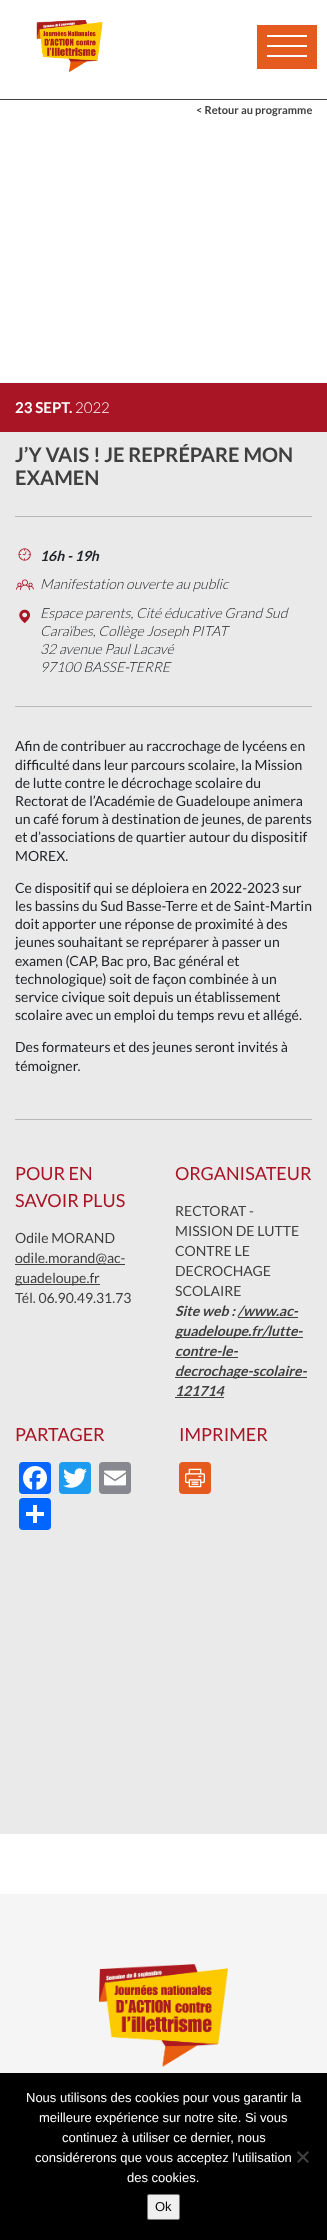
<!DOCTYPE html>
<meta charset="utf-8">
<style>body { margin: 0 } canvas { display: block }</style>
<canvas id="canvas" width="327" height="2240"></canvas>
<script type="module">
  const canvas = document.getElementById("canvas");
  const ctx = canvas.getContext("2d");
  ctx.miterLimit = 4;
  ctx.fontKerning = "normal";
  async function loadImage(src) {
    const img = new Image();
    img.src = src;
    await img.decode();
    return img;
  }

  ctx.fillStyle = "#ffffff";
  ctx.fillRect(0, 0, 327, 2240);
  ctx.fillStyle = "#3f3f3f";
  ctx.fillRect(0, 99, 327, 1);
  ctx.drawImage(await loadImage("img1.png"), 36, 20, 67, 53);
  ctx.fillStyle = "#e55b1f";
  ctx.fillRect(257, 25, 60, 44);
  ctx.fillStyle = "#ffffff";
  ctx.fillRect(267, 35, 40, 2);
  ctx.fillRect(267, 45, 40, 2);
  ctx.fillRect(267, 55, 40, 2);
  ctx.font = "bold 11px Lato";
  ctx.fillStyle = "#3f3f3f";
  ctx.fillText("< Retour au programme", 196, 114);
  ctx.fillStyle = "#eaeaea";
  ctx.fillRect(0, 432, 327, 1402);
  ctx.fillStyle = "#aa1526";
  ctx.fillRect(0, 383, 327, 49);
  ctx.font = "bold 15px Lato";
  ctx.fillStyle = "#ffffff";
  ctx.fillText("23 SEPT.", 15, 413);
  ctx.font = "300 15px Lato";
  ctx.fillText("2022", 75, 413);
  ctx.font = "bold 20px Lato";
  ctx.fillStyle = "#3f3f3f";
  ctx.fillText("J’Y VAIS ! JE REPRÉPARE MON", 15, 462);
  ctx.fillText("EXAMEN", 15, 485);
  ctx.fillStyle = "#b7b7b7";
  ctx.fillRect(15, 516, 297, 1);
  ctx.fillRect(15, 706, 297, 1);
  ctx.drawImage(await loadImage("img2.png"), 18, 548, 13, 13);
  ctx.font = "italic bold 14px Lato";
  ctx.fillStyle = "#212529";
  ctx.fillText("16h - 19h", 40, 561);
  ctx.drawImage(await loadImage("img3.png"), 16, 579, 18, 12);
  ctx.font = "italic 300 14px Lato";
  ctx.fillText("Manifestation ouverte au public", 40, 589);
  ctx.drawImage(await loadImage("img4.png"), 19, 609, 11, 15);
  ctx.fillText("Espace parents, Cité éducative Grand Sud", 40, 618);
  ctx.fillText("Caraïbes, Collège Joseph PITAT", 40, 636);
  ctx.fillText("32 avenue Paul Lacavé", 40, 654);
  ctx.fillText("97100 BASSE-TERRE", 40, 672);
  ctx.font = "14px Lato";
  ctx.fillText("Afin de contribuer au raccrochage de lycéens en", 15, 751);
  ctx.fillText("difficulté dans leur parcours scolaire, la Mission", 15, 770);
  ctx.fillText("de lutte contre le décrochage scolaire du", 15, 788);
  ctx.fillText("Rectorat de l’Académie de Guadeloupe animera", 15, 806);
  ctx.fillText("un café forum à destination de jeunes, de parents", 15, 824);
  ctx.fillText("et d’associations de quartier autour du dispositif", 15, 842);
  ctx.fillText("MOREX.", 15, 861);
  ctx.fillText("Ce dispositif qui se déploiera en 2022-2023 sur", 15, 893);
  ctx.fillText("les bassins du Sud Basse-Terre et de Saint-Martin", 15, 911);
  ctx.fillText("doit apporter une réponse de proximité à des", 15, 929);
  ctx.fillText("jeunes souhaitant se repréparer à passer un", 15, 947);
  ctx.fillText("examen (CAP, Bac pro, Bac général et", 15, 966);
  ctx.fillText("technologique) soit de façon combinée à un", 15, 984);
  ctx.fillText("service civique soit depuis un établissement", 15, 1002);
  ctx.fillText("scolaire avec un emploi du temps revu et allégé.", 15, 1020);
  ctx.fillText("Des formateurs et des jeunes seront invités à", 15, 1052);
  ctx.fillText("témoigner.", 15, 1071);
  ctx.fillStyle = "#b7b7b7";
  ctx.fillRect(15, 1119, 297, 1);
  ctx.font = "18px Lato";
  ctx.fillStyle = "#aa1526";
  ctx.fillText("POUR EN", 15, 1180);
  ctx.fillText("SAVOIR PLUS", 15, 1207);
  ctx.font = "14px Lato";
  ctx.fillStyle = "#3f3f3f";
  ctx.fillText("Odile MORAND", 15, 1243);
  ctx.fillRect(15, 1264, 110, 1);
  ctx.fillText("odile.morand@ac-", 15, 1263);
  ctx.fillRect(15, 1284, 85, 1);
  ctx.fillText("guadeloupe.fr", 15, 1283);
  ctx.fillText("Tél. 06.90.49.31.73", 15, 1303);
  ctx.font = "18px Lato";
  ctx.fillStyle = "#aa1526";
  ctx.fillText("ORGANISATEUR", 175, 1180);
  ctx.font = "14px Lato";
  ctx.fillStyle = "#3f3f3f";
  ctx.fillText("RECTORAT -", 175, 1216);
  ctx.fillText("MISSION DE LUTTE", 175, 1236);
  ctx.fillText("CONTRE LE", 175, 1256);
  ctx.fillText("DECROCHAGE", 175, 1276);
  ctx.fillText("SCOLAIRE", 175, 1296);
  ctx.font = "italic bold 14px Lato";
  ctx.fillText("Site web : /www.ac-", 175, 1316);
  ctx.fillRect(175, 1337, 128, 1);
  ctx.fillText("guadeloupe.fr/lutte-", 175, 1336);
  ctx.fillRect(238, 1317, 60, 1);
  ctx.fillText("contre-le-", 175, 1356);
  ctx.fillRect(175, 1357, 63, 1);
  ctx.fillRect(175, 1377, 132, 1);
  ctx.fillText("decrochage-scolaire-", 175, 1376);
  ctx.fillText("121714", 175, 1396);
  ctx.fillRect(175, 1397, 49, 1);
  ctx.font = "18px Lato";
  ctx.fillStyle = "#aa1526";
  ctx.fillText("PARTAGER", 15, 1441);
  ctx.fillStyle = "#0866ff";
  ctx.beginPath();
  ctx.roundRect(19, 1462, 32, 32, 4);
  ctx.fill();
  ctx.drawImage(await loadImage("img5.png"), 23, 1466, 24, 24);
  ctx.fillStyle = "#1d9bf0";
  ctx.beginPath();
  ctx.roundRect(59, 1462, 32, 32, 4);
  ctx.fill();
  ctx.drawImage(await loadImage("img6.png"), 63, 1468, 24, 20);
  ctx.fillStyle = "#888990";
  ctx.beginPath();
  ctx.roundRect(99, 1462, 32, 32, 4);
  ctx.fill();
  ctx.drawImage(await loadImage("img7.png"), 104, 1470, 22, 16);
  ctx.fillStyle = "#0166ff";
  ctx.beginPath();
  ctx.roundRect(19, 1498, 32, 32, 4);
  ctx.fill();
  ctx.fillStyle = "#ffffff";
  ctx.fillRect(33, 1505, 4, 18);
  ctx.fillRect(26, 1512, 18, 4);
  ctx.fillStyle = "#aa1526";
  ctx.fillText("IMPRIMER", 179, 1441);
  ctx.fillStyle = "#e55b1f";
  ctx.beginPath();
  ctx.roundRect(179, 1462, 32, 32, 4);
  ctx.fill();
  ctx.drawImage(await loadImage("img8.png"), 185, 1468, 20, 20);
  ctx.fillStyle = "#f5f5f5";
  ctx.fillRect(0, 1894, 327, 179);
  ctx.drawImage(await loadImage("img9.png"), 99, 1964, 129, 103);
  ctx.fillStyle = "#000000";
  ctx.fillRect(0, 2073, 327, 167);
  ctx.font = "13px Liberation Sans";
  ctx.fillStyle = "#ffffff";
  ctx.fillText("Nous utilisons des cookies pour vous garantir la", 26, 2102);
  ctx.fillText("meilleure expérience sur notre site. Si vous", 39, 2122);
  ctx.fillText("continuez à utiliser ce dernier, nous", 62, 2142);
  ctx.fillText("considérerons que vous acceptez l'utilisation", 35, 2162);
  ctx.fillText("des cookies.", 127, 2182);
  ctx.fillStyle = "#404040";
  ctx.beginPath();
  ctx.moveTo(307.5, 2151);
  ctx.lineTo(309, 2152.5);
  ctx.lineTo(298.5, 2163);
  ctx.lineTo(297, 2161.5);
  ctx.closePath();
  ctx.fill();
  ctx.beginPath();
  ctx.moveTo(297, 2152.5);
  ctx.lineTo(298.5, 2151);
  ctx.lineTo(309, 2161.5);
  ctx.lineTo(307.5, 2163);
  ctx.closePath();
  ctx.fill();
  ctx.fillStyle = "#efefef";
  ctx.beginPath();
  ctx.roundRect(147.5, 2194.5, 32, 25, 1.5);
  ctx.fill();
  ctx.strokeStyle = "#767676";
  ctx.stroke();
  ctx.fillStyle = "#000000";
  ctx.fillText("Ok", 155, 2211);
</script>
